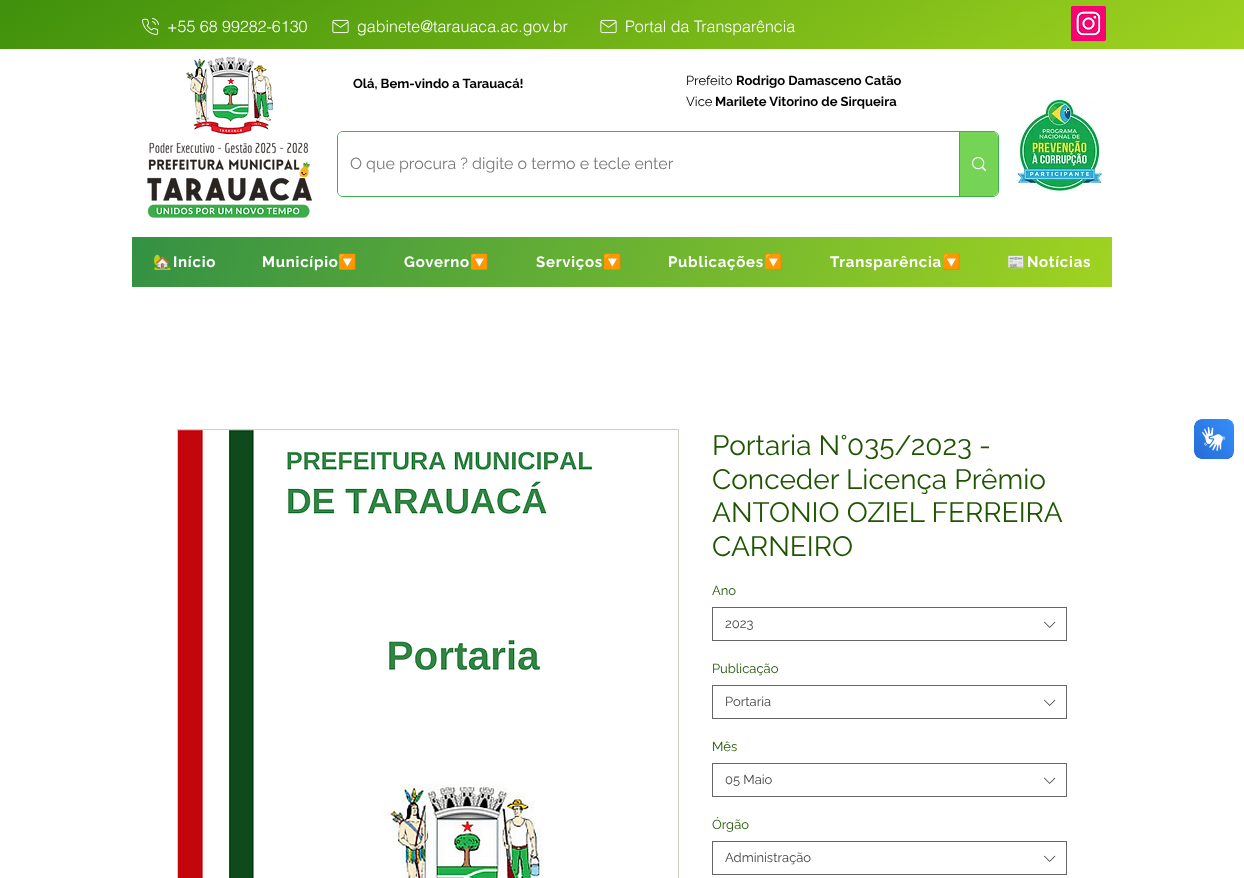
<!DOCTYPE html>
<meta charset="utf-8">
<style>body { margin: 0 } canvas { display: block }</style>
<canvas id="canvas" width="1244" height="878"></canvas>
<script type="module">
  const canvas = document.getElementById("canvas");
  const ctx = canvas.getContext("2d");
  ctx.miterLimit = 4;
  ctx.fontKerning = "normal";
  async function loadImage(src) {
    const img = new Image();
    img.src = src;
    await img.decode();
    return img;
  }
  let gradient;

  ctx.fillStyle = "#ffffff";
  ctx.fillRect(0, 0, 1244, 878);
  gradient = ctx.createLinearGradient(446, -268, 798, 317);
  gradient.addColorStop(0, "#3f900c");
  gradient.addColorStop(1, "#a0d320");
  ctx.fillStyle = gradient;
  ctx.fillRect(0, 0, 1244, 49);
  ctx.drawImage(await loadImage("img1.png"), 142, 18, 17, 17);
  ctx.font = "300 16px helvetica";
  ctx.fillStyle = "#ffffff";
  ctx.fillText("+55 68 99282-6130", 167, 32);
  ctx.drawImage(await loadImage("img2.png"), 332, 19, 17, 15);
  ctx.fillText("gabinete@tarauaca.ac.gov.br", 357, 32);
  ctx.drawImage(await loadImage("img3.png"), 600, 19, 17, 15);
  ctx.fillText("Portal da Transparência", 625, 32);
  ctx.drawImage(await loadImage("img4.png"), 1071, 6, 35, 35);
  ctx.drawImage(await loadImage("img5.png"), 147, 57, 165, 161);
  ctx.font = "bold 13px Raleway";
  ctx.fillStyle = "#000000";
  ctx.fillText("Olá, Bem-vindo a Tarauacá!", 353, 88);
  ctx.font = "13px Raleway";
  ctx.fillText("Prefeito", 686, 85);
  ctx.font = "bold 13px Raleway";
  ctx.fillText("Rodrigo Damasceno Catão", 736, 85);
  ctx.beginPath();
  ctx.roundRect(337.5, 131.5, 661, 65, 5.5);
  ctx.strokeStyle = "#3fb052";
  ctx.stroke();
  ctx.fillStyle = "#ffffff";
  ctx.beginPath();
  ctx.roundRect(338, 132, 660, 64, 5);
  ctx.fill();
  ctx.font = "16px Raleway";
  ctx.fillStyle = "#787878";
  ctx.fillText("O que procura ? digite o termo e tecle enter", 350, 169);
  ctx.fillStyle = "#75d355";
  ctx.beginPath();
  ctx.roundRect(959, 132, 39, 64, [0, 5, 5, 0]);
  ctx.fill();
  ctx.fillStyle = "#3fb052";
  ctx.fillRect(959, 132, 1, 64);
  ctx.drawImage(await loadImage("img6.png"), 972, 157, 14, 14);
  ctx.font = "13px Raleway";
  ctx.fillStyle = "#000000";
  ctx.fillText("Vice", 686, 106);
  ctx.font = "bold 13px Raleway";
  ctx.fillText("Marilete Vitorino de Sirqueira", 715, 106);
  ctx.drawImage(await loadImage("img7.png"), 1014, 100, 89, 93);
  gradient = ctx.createLinearGradient(1068, 415, 176, 109);
  gradient.addColorStop(0, "#a0d320");
  gradient.addColorStop(1, "#349144");
  ctx.fillStyle = gradient;
  ctx.fillRect(132, 237, 980, 50);
  ctx.letterSpacing = "0.75px";
  ctx.font = "bold 15px Noto Color Emoji";
  ctx.fillStyle = "#ffffff";
  ctx.fillText("🏡", 153, 267);
  ctx.font = "bold 15px Raleway";
  ctx.fillText("Início", 173, 267);
  ctx.fillText("Município", 262, 267);
  ctx.font = "bold 15px Noto Color Emoji";
  ctx.fillText("🔽", 338, 267);
  ctx.font = "bold 15px Raleway";
  ctx.fillText("Governo", 404, 267);
  ctx.font = "bold 15px Noto Color Emoji";
  ctx.fillText("🔽", 470, 267);
  ctx.font = "bold 15px Raleway";
  ctx.fillText("Serviços", 536, 267);
  ctx.font = "bold 15px Noto Color Emoji";
  ctx.fillText("🔽", 603, 267);
  ctx.font = "bold 15px Raleway";
  ctx.fillText("Publicações", 668, 267);
  ctx.font = "bold 15px Noto Color Emoji";
  ctx.fillText("🔽", 764, 267);
  ctx.font = "bold 15px Raleway";
  ctx.fillText("Transparência", 830, 267);
  ctx.font = "bold 15px Noto Color Emoji";
  ctx.fillText("🔽", 942, 267);
  ctx.fillText("📰", 1007, 267);
  ctx.font = "bold 15px Raleway";
  ctx.fillText("Notícias", 1027, 267);
  ctx.strokeStyle = "#c7d5bf";
  ctx.strokeRect(177.5, 429.5, 501, 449);
  ctx.drawImage(await loadImage("img8.png"), 178, 430, 415, 448);
  ctx.letterSpacing = "0px";
  ctx.font = "28px Raleway";
  ctx.fillStyle = "#1f5500";
  ctx.fillText("Portaria N°035/2023 -", 712, 455);
  ctx.fillText("Conceder Licença Prêmio", 712, 489);
  ctx.fillText("ANTONIO OZIEL FERREIRA", 712, 522);
  ctx.fillText("CARNEIRO", 712, 556);
  ctx.font = "13px Raleway";
  ctx.fillText("Ano", 712, 595);
  ctx.strokeStyle = "#666666";
  ctx.strokeRect(712.5, 607.5, 354, 33);
  ctx.fillStyle = "#444444";
  ctx.fillText("2023", 725, 628);
  ctx.drawImage(await loadImage("img9.png"), 1044, 621, 12, 7);
  ctx.fillStyle = "#1f5500";
  ctx.fillText("Publicação", 712, 673);
  ctx.strokeRect(712.5, 685.5, 354, 33);
  ctx.fillStyle = "#444444";
  ctx.fillText("Portaria", 725, 706);
  ctx.drawImage(await loadImage("img9.png"), 1044, 699, 12, 7);
  ctx.fillStyle = "#1f5500";
  ctx.fillText("Mês", 712, 751);
  ctx.strokeRect(712.5, 763.5, 354, 33);
  ctx.fillStyle = "#444444";
  ctx.fillText("05 Maio", 725, 784);
  ctx.drawImage(await loadImage("img9.png"), 1044, 777, 12, 7);
  ctx.fillStyle = "#1f5500";
  ctx.fillText("Órgão", 712, 829);
  ctx.strokeRect(712.5, 841.5, 354, 33);
  ctx.fillStyle = "#444444";
  ctx.fillText("Administração", 725, 862);
  ctx.drawImage(await loadImage("img9.png"), 1044, 855, 12, 7);
  ctx.drawImage(await loadImage("img10.png"), 1194, 419, 40, 40);
  ctx.drawImage(await loadImage("img11.png"), 1194, 419, 40, 40);
</script>
